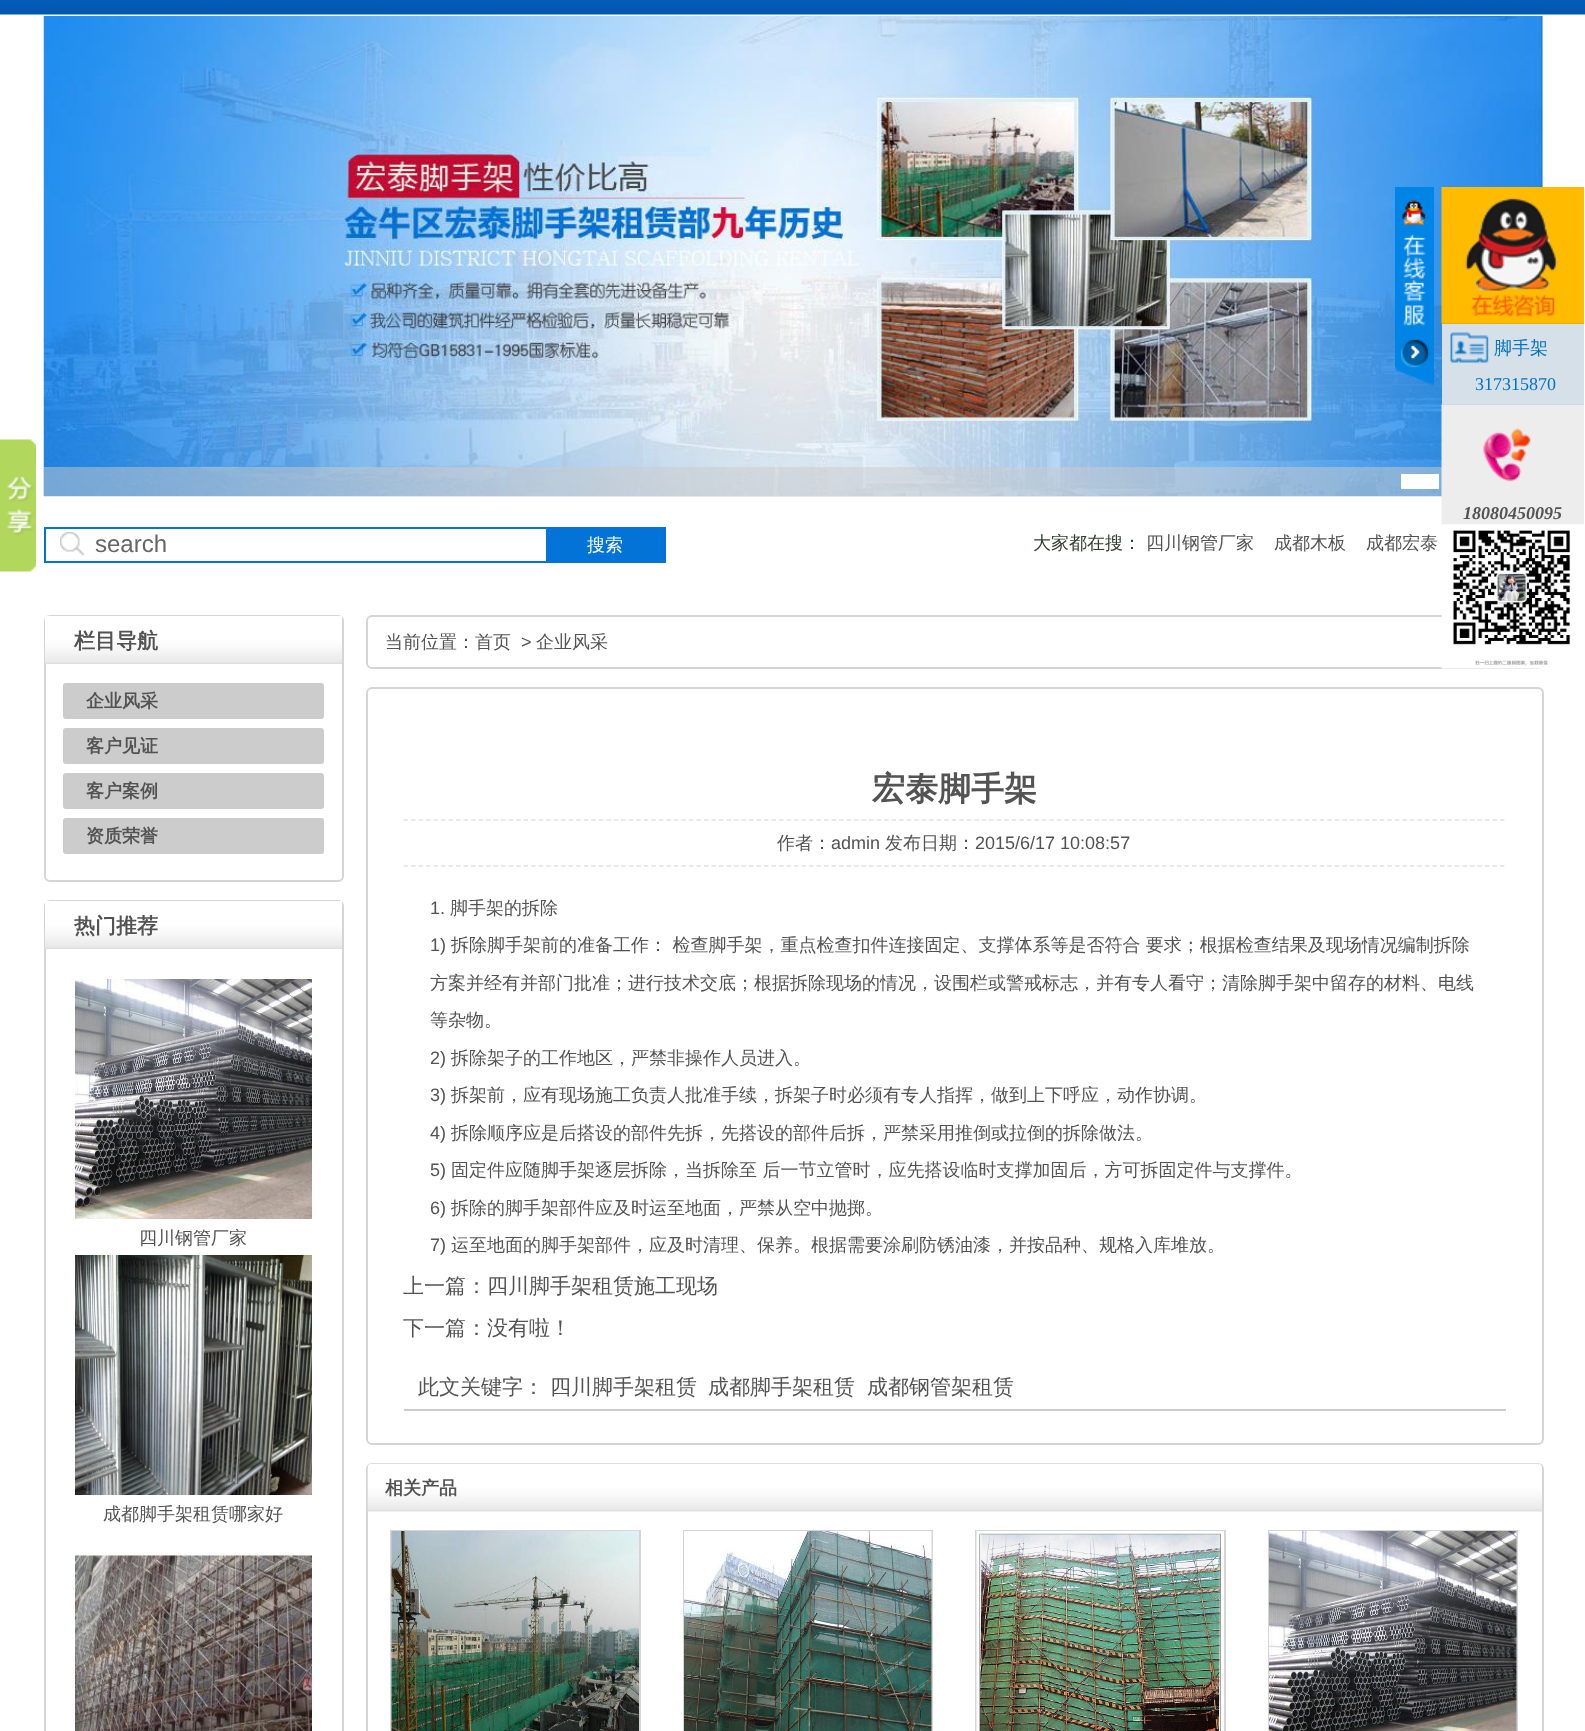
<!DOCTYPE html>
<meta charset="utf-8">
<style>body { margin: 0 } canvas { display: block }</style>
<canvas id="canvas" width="1585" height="1731"></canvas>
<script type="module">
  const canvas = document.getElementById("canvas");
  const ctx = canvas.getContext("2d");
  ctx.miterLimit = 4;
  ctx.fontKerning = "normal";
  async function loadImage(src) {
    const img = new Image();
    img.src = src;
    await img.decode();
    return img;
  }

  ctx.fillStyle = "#ffffff";
  ctx.fillRect(0, 0, 1585, 1731);
  ctx.drawImage(await loadImage("img1.png"), 0, 0, 1585, 15);
  ctx.drawImage(await loadImage("img2.png"), 43, 16, 1500, 480);
  ctx.fillStyle = "rgba(203, 203, 203, 0.5)";
  ctx.fillRect(44, 467, 1398, 30);
  ctx.fillStyle = "#ffffff";
  ctx.fillRect(1401, 474, 38, 15);
  ctx.drawImage(await loadImage("img3.png"), 0, 439, 36, 133);
  ctx.drawImage(await loadImage("img4.png"), 60, 532, 24, 24);
  ctx.fillStyle = "#0373d7";
  ctx.fillRect(44, 527, 502, 2);
  ctx.fillRect(44, 561, 502, 2);
  ctx.fillRect(44, 527, 2, 36);
  ctx.font = "24px Liberation Sans";
  ctx.fillStyle = "#666666";
  ctx.fillText("search", 95, 552);
  ctx.fillStyle = "#0373d7";
  ctx.fillRect(546, 527, 120, 36);
  ctx.font = "500 18px WenQuanYi Zen Hei";
  ctx.fillStyle = "#ffffff";
  ctx.fillText("搜索", 587, 551);
  ctx.fillStyle = "#323d31";
  ctx.fillText("大家都在搜：", 1033, 549);
  ctx.fillStyle = "#535353";
  ctx.fillText("四川钢管厂家", 1146, 549);
  ctx.fillText("成都木板", 1274, 549);
  ctx.fillText("成都宏泰", 1366, 549);
  ctx.drawImage(await loadImage("img5.png"), 1395, 187, 39, 198);
  ctx.drawImage(await loadImage("img6.png"), 1441, 187, 143, 137);
  ctx.fillStyle = "#ebac00";
  ctx.fillRect(1442, 323, 142, 1);
  ctx.fillStyle = "#d5e0e9";
  ctx.fillRect(1442, 324, 142, 80);
  ctx.drawImage(await loadImage("img7.png"), 1450, 332, 39, 31);
  ctx.fillStyle = "#a5c8e1";
  ctx.fillRect(1442, 404, 142, 1);
  ctx.fillStyle = "#0072c6";
  ctx.fillText("脚手架", 1494, 354);
  ctx.font = "18px Liberation Serif";
  ctx.fillText("317315870", 1475, 390);
  ctx.drawImage(await loadImage("img8.png"), 1441, 404, 143, 121);
  ctx.font = "italic bold 18px Liberation Serif";
  ctx.fillStyle = "#535353";
  ctx.fillText("18080450095", 1463, 519);
  ctx.beginPath();
  ctx.roundRect(367, 616, 1176, 52, 5);
  ctx.strokeStyle = "#d5d5d5";
  ctx.lineWidth = 2;
  ctx.stroke();
  ctx.drawImage(await loadImage("img9.png"), 1441, 524, 143, 145);
  ctx.beginPath();
  ctx.roundRect(45, 616, 298, 265, 5);
  ctx.stroke();
  ctx.drawImage(await loadImage("img10.png"), 45, 616, 297, 48);
  ctx.font = "bold 21px WenQuanYi Zen Hei";
  ctx.fillText("栏目导航", 74, 648);
  ctx.fillStyle = "#cccccc";
  ctx.beginPath();
  ctx.roundRect(63, 683, 261, 36, 3);
  ctx.fill();
  ctx.font = "bold 18px WenQuanYi Zen Hei";
  ctx.fillStyle = "#535353";
  ctx.fillText("企业风采", 86, 707);
  ctx.fillStyle = "#cccccc";
  ctx.beginPath();
  ctx.roundRect(63, 728, 261, 36, 3);
  ctx.fill();
  ctx.fillStyle = "#535353";
  ctx.fillText("客户见证", 86, 752);
  ctx.fillStyle = "#cccccc";
  ctx.beginPath();
  ctx.roundRect(63, 773, 261, 36, 3);
  ctx.fill();
  ctx.fillStyle = "#535353";
  ctx.fillText("客户案例", 86, 797);
  ctx.fillStyle = "#cccccc";
  ctx.beginPath();
  ctx.roundRect(63, 818, 261, 36, 3);
  ctx.fill();
  ctx.fillStyle = "#535353";
  ctx.fillText("资质荣誉", 86, 842);
  ctx.beginPath();
  ctx.roundRect(45, 901, 298, 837, 5);
  ctx.stroke();
  ctx.drawImage(await loadImage("img10.png"), 45, 901, 297, 48);
  ctx.font = "bold 21px WenQuanYi Zen Hei";
  ctx.fillText("热门推荐", 74, 933);
  ctx.drawImage(await loadImage("img11.png"), 75, 979, 237, 240);
  ctx.font = "500 18px WenQuanYi Zen Hei";
  ctx.fillText("四川钢管厂家", 139, 1244);
  ctx.drawImage(await loadImage("img12.png"), 75, 1255, 237, 240);
  ctx.fillText("成都脚手架租赁哪家好", 103, 1520);
  ctx.drawImage(await loadImage("img13.png"), 75, 1552, 237, 179);
  ctx.fillText("当前位置：首页", 385, 648);
  ctx.font = "18px Liberation Sans";
  ctx.fillText(">", 521, 648);
  ctx.font = "500 18px WenQuanYi Zen Hei";
  ctx.fillText("企业风采", 536, 648);
  ctx.beginPath();
  ctx.roundRect(367, 688, 1176, 756, 5);
  ctx.stroke();
  ctx.beginPath();
  ctx.moveTo(403.5, 820);
  ctx.lineTo(1506, 820);
  ctx.strokeStyle = "#e1e3df";
  ctx.lineWidth = 1.5;
  ctx.setLineDash([4.5, 3.01]);
  ctx.stroke();
  ctx.font = "bold 33px WenQuanYi Zen Hei";
  ctx.fillText("宏泰脚手架", 872, 800);
  ctx.beginPath();
  ctx.moveTo(403.5, 866);
  ctx.lineTo(1506, 866);
  ctx.stroke();
  ctx.font = "500 18px WenQuanYi Zen Hei";
  ctx.fillText("作者：", 777, 849);
  ctx.font = "18px Liberation Sans";
  ctx.fillText("admin", 831, 849);
  ctx.font = "500 18px WenQuanYi Zen Hei";
  ctx.fillText("发布日期：", 885, 849);
  ctx.font = "18px Liberation Sans";
  ctx.fillText("2015/6/17 10:08:57", 975, 849);
  ctx.fillText("1.", 430, 914);
  ctx.font = "500 18px WenQuanYi Zen Hei";
  ctx.fillText("脚手架的拆除", 450, 914);
  ctx.font = "18px Liberation Sans";
  ctx.fillText("1)", 430, 951);
  ctx.font = "500 18px WenQuanYi Zen Hei";
  ctx.fillText("拆除脚手架前的准备工作： 检查脚手架，重点检查扣件连接固定、支撑体系等是否符合 要求；根据检查结果及现场情况编制拆除", 451, 951);
  ctx.fillText("方案并经有并部门批准；进行技术交底；根据拆除现场的情况，设围栏或警戒标志，并有专人看守；清除脚手架中留存的材料、电线", 430, 989);
  ctx.fillText("等杂物。", 430, 1026);
  ctx.font = "18px Liberation Sans";
  ctx.fillText("2)", 430, 1064);
  ctx.font = "500 18px WenQuanYi Zen Hei";
  ctx.fillText("拆除架子的工作地区，严禁非操作人员进入。", 451, 1064);
  ctx.font = "18px Liberation Sans";
  ctx.fillText("3)", 430, 1101);
  ctx.font = "500 18px WenQuanYi Zen Hei";
  ctx.fillText("拆架前，应有现场施工负责人批准手续，拆架子时必须有专人指挥，做到上下呼应，动作协调。", 451, 1101);
  ctx.font = "18px Liberation Sans";
  ctx.fillText("4)", 430, 1139);
  ctx.font = "500 18px WenQuanYi Zen Hei";
  ctx.fillText("拆除顺序应是后搭设的部件先拆，先搭设的部件后拆，严禁采用推倒或拉倒的拆除做法。", 451, 1139);
  ctx.font = "18px Liberation Sans";
  ctx.fillText("5)", 430, 1176);
  ctx.font = "500 18px WenQuanYi Zen Hei";
  ctx.fillText("固定件应随脚手架逐层拆除，当拆除至 后一节立管时，应先搭设临时支撑加固后，方可拆固定件与支撑件。", 451, 1176);
  ctx.font = "18px Liberation Sans";
  ctx.fillText("6)", 430, 1214);
  ctx.font = "500 18px WenQuanYi Zen Hei";
  ctx.fillText("拆除的脚手架部件应及时运至地面，严禁从空中抛掷。", 451, 1214);
  ctx.font = "18px Liberation Sans";
  ctx.fillText("7)", 430, 1251);
  ctx.font = "500 18px WenQuanYi Zen Hei";
  ctx.fillText("运至地面的脚手架部件，应及时清理、保养。根据需要涂刷防锈油漆，并按品种、规格入库堆放。", 451, 1251);
  ctx.font = "500 21px WenQuanYi Zen Hei";
  ctx.fillText("上一篇：四川脚手架租赁施工现场", 403, 1293);
  ctx.fillText("下一篇：没有啦！", 403, 1335);
  ctx.fillStyle = "#cccccc";
  ctx.fillRect(404, 1409, 1102, 2);
  ctx.fillStyle = "#535353";
  ctx.fillText("此文关键字：", 418, 1394);
  ctx.fillText("四川脚手架租赁", 550, 1394);
  ctx.fillText("成都脚手架租赁", 708, 1394);
  ctx.fillText("成都钢管架租赁", 867, 1394);
  ctx.beginPath();
  ctx.roundRect(367, 1464, 1176, 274, 5);
  ctx.strokeStyle = "#d5d5d5";
  ctx.lineWidth = 2;
  ctx.setLineDash([]);
  ctx.stroke();
  ctx.drawImage(await loadImage("img14.png"), 367, 1463, 1175, 49);
  ctx.font = "bold 18px WenQuanYi Zen Hei";
  ctx.fillText("相关产品", 385, 1494);
  ctx.strokeRect(391, 1531, 249, 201);
  ctx.drawImage(await loadImage("img15.png"), 391, 1531, 248, 200);
  ctx.strokeRect(684, 1531, 248, 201);
  ctx.drawImage(await loadImage("img16.png"), 684, 1531, 248, 200);
  ctx.strokeRect(976, 1531, 249, 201);
  ctx.drawImage(await loadImage("img17.png"), 976, 1531, 248, 200);
  ctx.strokeRect(1269, 1531, 248, 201);
  ctx.drawImage(await loadImage("img18.png"), 1269, 1531, 248, 200);
</script>
